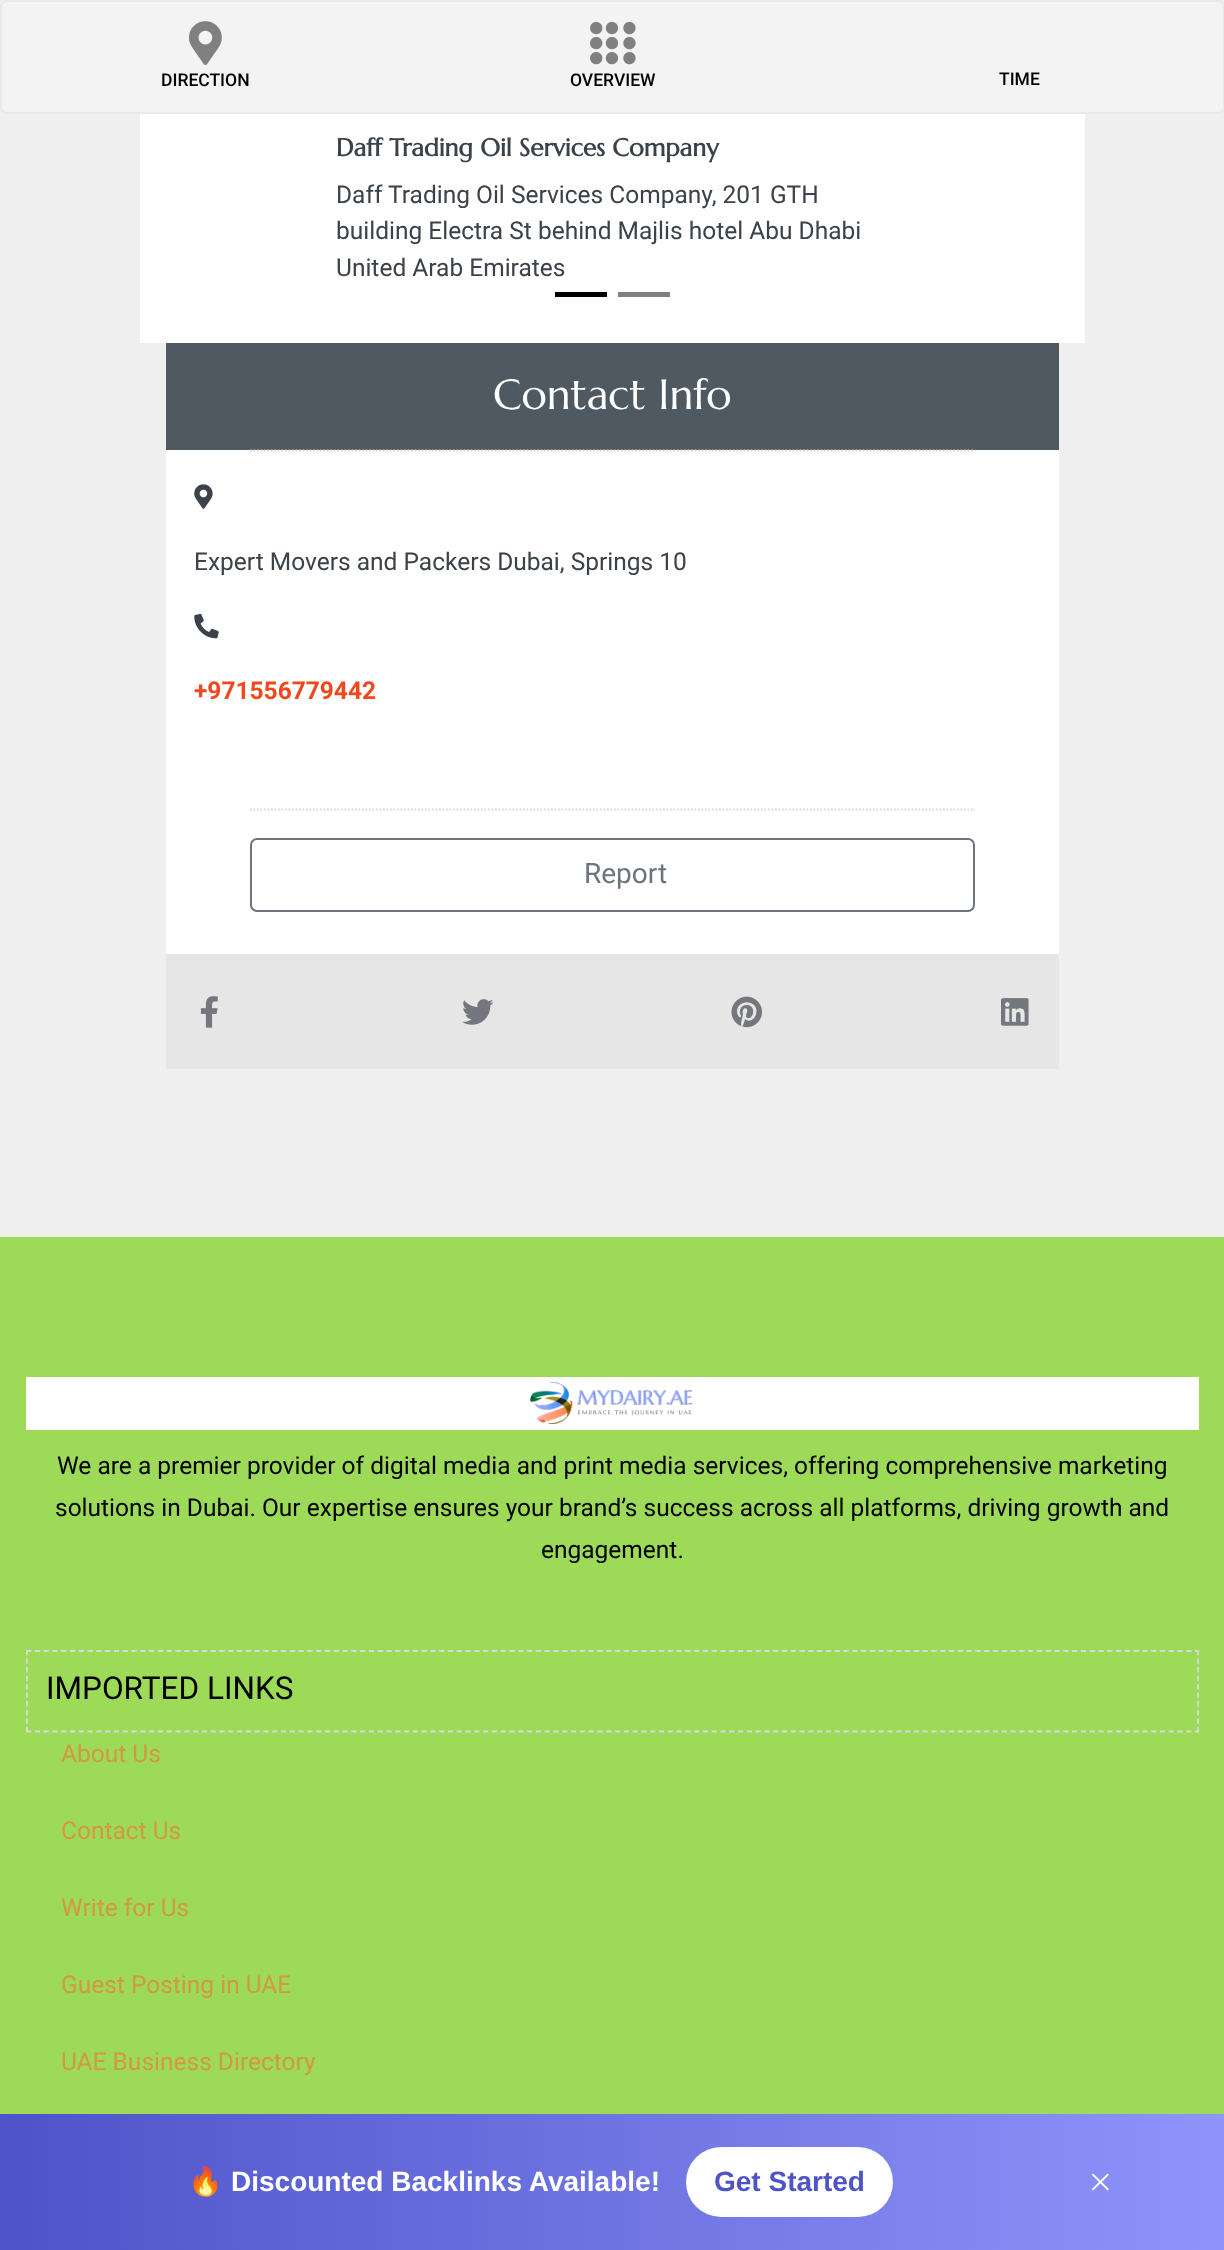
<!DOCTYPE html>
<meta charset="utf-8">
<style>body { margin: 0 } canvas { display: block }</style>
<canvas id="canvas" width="1224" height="2250"></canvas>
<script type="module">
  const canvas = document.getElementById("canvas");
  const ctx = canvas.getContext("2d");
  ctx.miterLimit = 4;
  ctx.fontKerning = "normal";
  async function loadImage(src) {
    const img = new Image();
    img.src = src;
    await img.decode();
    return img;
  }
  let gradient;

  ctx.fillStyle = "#efefef";
  ctx.fillRect(0, 0, 1224, 2250);
  ctx.fillStyle = "#f3f3f3";
  ctx.beginPath();
  ctx.roundRect(1, 1, 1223, 112, 6);
  ctx.fill();
  ctx.strokeStyle = "#e9e9e9";
  ctx.lineWidth = 2;
  ctx.stroke();
  ctx.drawImage(await loadImage("img1.png"), 189, 21, 33, 44);
  ctx.font = "500 17.5px Roboto";
  ctx.fillStyle = "#000000";
  ctx.fillText("DIRECTION", 161, 86);
  ctx.drawImage(await loadImage("img2.png"), 590, 21, 13, 44);
  ctx.drawImage(await loadImage("img3.png"), 605, 21, 14, 44);
  ctx.drawImage(await loadImage("img4.png"), 623, 21, 13, 44);
  ctx.fillText("OVERVIEW", 570, 86);
  ctx.fillText("TIME", 999, 85);
  ctx.fillStyle = "#ffffff";
  ctx.fillRect(140, 114, 945, 229);
  ctx.font = "bold 24.5px Marcellus";
  ctx.fillStyle = "#3b4249";
  ctx.fillText("Daff Trading Oil Services Company", 336, 156);
  ctx.font = "24.5px Roboto";
  ctx.fillText("Daff Trading Oil Services Company, 201 GTH", 336, 203);
  ctx.fillText("building Electra St behind Majlis hotel Abu Dhabi", 336, 239);
  ctx.fillText("United Arab Emirates", 336, 276);
  ctx.fillStyle = "#000000";
  ctx.fillRect(555, 292, 52, 5);
  ctx.fillStyle = "#808080";
  ctx.fillRect(618, 292, 52, 5);
  ctx.fillStyle = "#ffffff";
  ctx.fillRect(166, 450, 893, 504);
  ctx.fillStyle = "#4f5962";
  ctx.fillRect(166, 343, 893, 107);
  ctx.font = "42px Marcellus";
  ctx.fillStyle = "#ffffff";
  ctx.fillText("Contact Info", 493, 409);
  ctx.beginPath();
  ctx.moveTo(250, 450.5);
  ctx.lineTo(975, 450.5);
  ctx.strokeStyle = "#d8d8d8";
  ctx.lineWidth = 1.8;
  ctx.setLineDash([1.75, 1.75]);
  ctx.stroke();
  ctx.drawImage(await loadImage("img5.png"), 194, 484, 19, 25);
  ctx.font = "24.5px Roboto";
  ctx.fillStyle = "#3b4249";
  ctx.fillText("Expert Movers and Packers Dubai, Springs 10", 194, 570);
  ctx.drawImage(await loadImage("img6.png"), 194, 613, 25, 26);
  ctx.font = "bold 24.5px Roboto";
  ctx.fillStyle = "#f1471d";
  ctx.fillText("+971556779442", 194, 699);
  ctx.beginPath();
  ctx.moveTo(250, 809.5);
  ctx.lineTo(975, 809.5);
  ctx.stroke();
  ctx.beginPath();
  ctx.roundRect(251, 839, 723, 72, 6);
  ctx.strokeStyle = "#6c757d";
  ctx.lineWidth = 2;
  ctx.setLineDash([]);
  ctx.stroke();
  ctx.font = "28px Roboto";
  ctx.fillStyle = "#6c757d";
  ctx.fillText("Report", 584, 883);
  ctx.fillStyle = "#e6e6e6";
  ctx.fillRect(166, 954, 893, 115);
  ctx.drawImage(await loadImage("img7.png"), 200, 996, 18, 32);
  ctx.drawImage(await loadImage("img8.png"), 462, 999, 32, 26);
  ctx.drawImage(await loadImage("img9.png"), 731, 996, 31, 32);
  ctx.drawImage(await loadImage("img10.png"), 1001, 998, 28, 28);
  ctx.fillStyle = "#9cda58";
  ctx.fillRect(0, 1237, 1224, 877);
  ctx.fillStyle = "#ffffff";
  ctx.fillRect(26, 1377, 1173, 53);
  ctx.drawImage(await loadImage("img11.png"), 530, 1382, 163, 42);
  ctx.font = "24.5px Roboto";
  ctx.fillStyle = "#000000";
  ctx.fillText("We are a premier provider of digital media and print media services, offering comprehensive marketing", 57, 1474);
  ctx.fillText("solutions in Dubai. Our expertise ensures your brand’s success across all platforms, driving growth and", 55, 1516);
  ctx.fillText("engagement.", 541, 1558);
  ctx.beginPath();
  ctx.moveTo(26, 1651);
  ctx.lineTo(1199, 1651);
  ctx.strokeStyle = "#d9d9d9";
  ctx.lineWidth = 1.8;
  ctx.setLineDash([5.25, 3.54]);
  ctx.stroke();
  ctx.beginPath();
  ctx.moveTo(1198, 1650);
  ctx.lineTo(1198, 1732.5);
  ctx.setLineDash([5.25, 3.31]);
  ctx.stroke();
  ctx.beginPath();
  ctx.moveTo(26, 1731.5);
  ctx.lineTo(1199, 1731.5);
  ctx.setLineDash([5.25, 3.54]);
  ctx.stroke();
  ctx.beginPath();
  ctx.moveTo(27, 1650);
  ctx.lineTo(27, 1732.5);
  ctx.setLineDash([5.25, 3.31]);
  ctx.stroke();
  ctx.font = "31.5px Roboto";
  ctx.fillText("IMPORTED LINKS", 46, 1699);
  ctx.font = "24.5px Roboto";
  ctx.fillStyle = "#d39844";
  ctx.fillText("About Us", 61, 1762);
  ctx.fillText("Contact Us", 61, 1839);
  ctx.fillText("Write for Us", 61, 1916);
  ctx.fillText("Guest Posting in UAE", 61, 1993);
  ctx.fillText("UAE Business Directory", 61, 2070);
  gradient = ctx.createLinearGradient(0, 2182, 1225, 2182);
  gradient.addColorStop(0, "#4e54c8");
  gradient.addColorStop(1, "#8f94fb");
  ctx.fillStyle = gradient;
  ctx.fillRect(0, 2114, 1224, 136);
  ctx.font = "bold 28px Noto Color Emoji";
  ctx.fillStyle = "#ffffff";
  ctx.fillText("🔥", 188, 2191);
  ctx.font = "bold 28px Liberation Sans";
  ctx.fillText("Discounted Backlinks Available!", 231, 2191);
  ctx.beginPath();
  ctx.roundRect(686, 2147, 207, 70, 35);
  ctx.fill();
  ctx.fillStyle = "#4e54c8";
  ctx.fillText("Get Started", 714, 2191);
  ctx.font = "38px Marcellus";
  ctx.fillStyle = "#ffffff";
  ctx.fillText("×", 1088, 2195);
</script>
